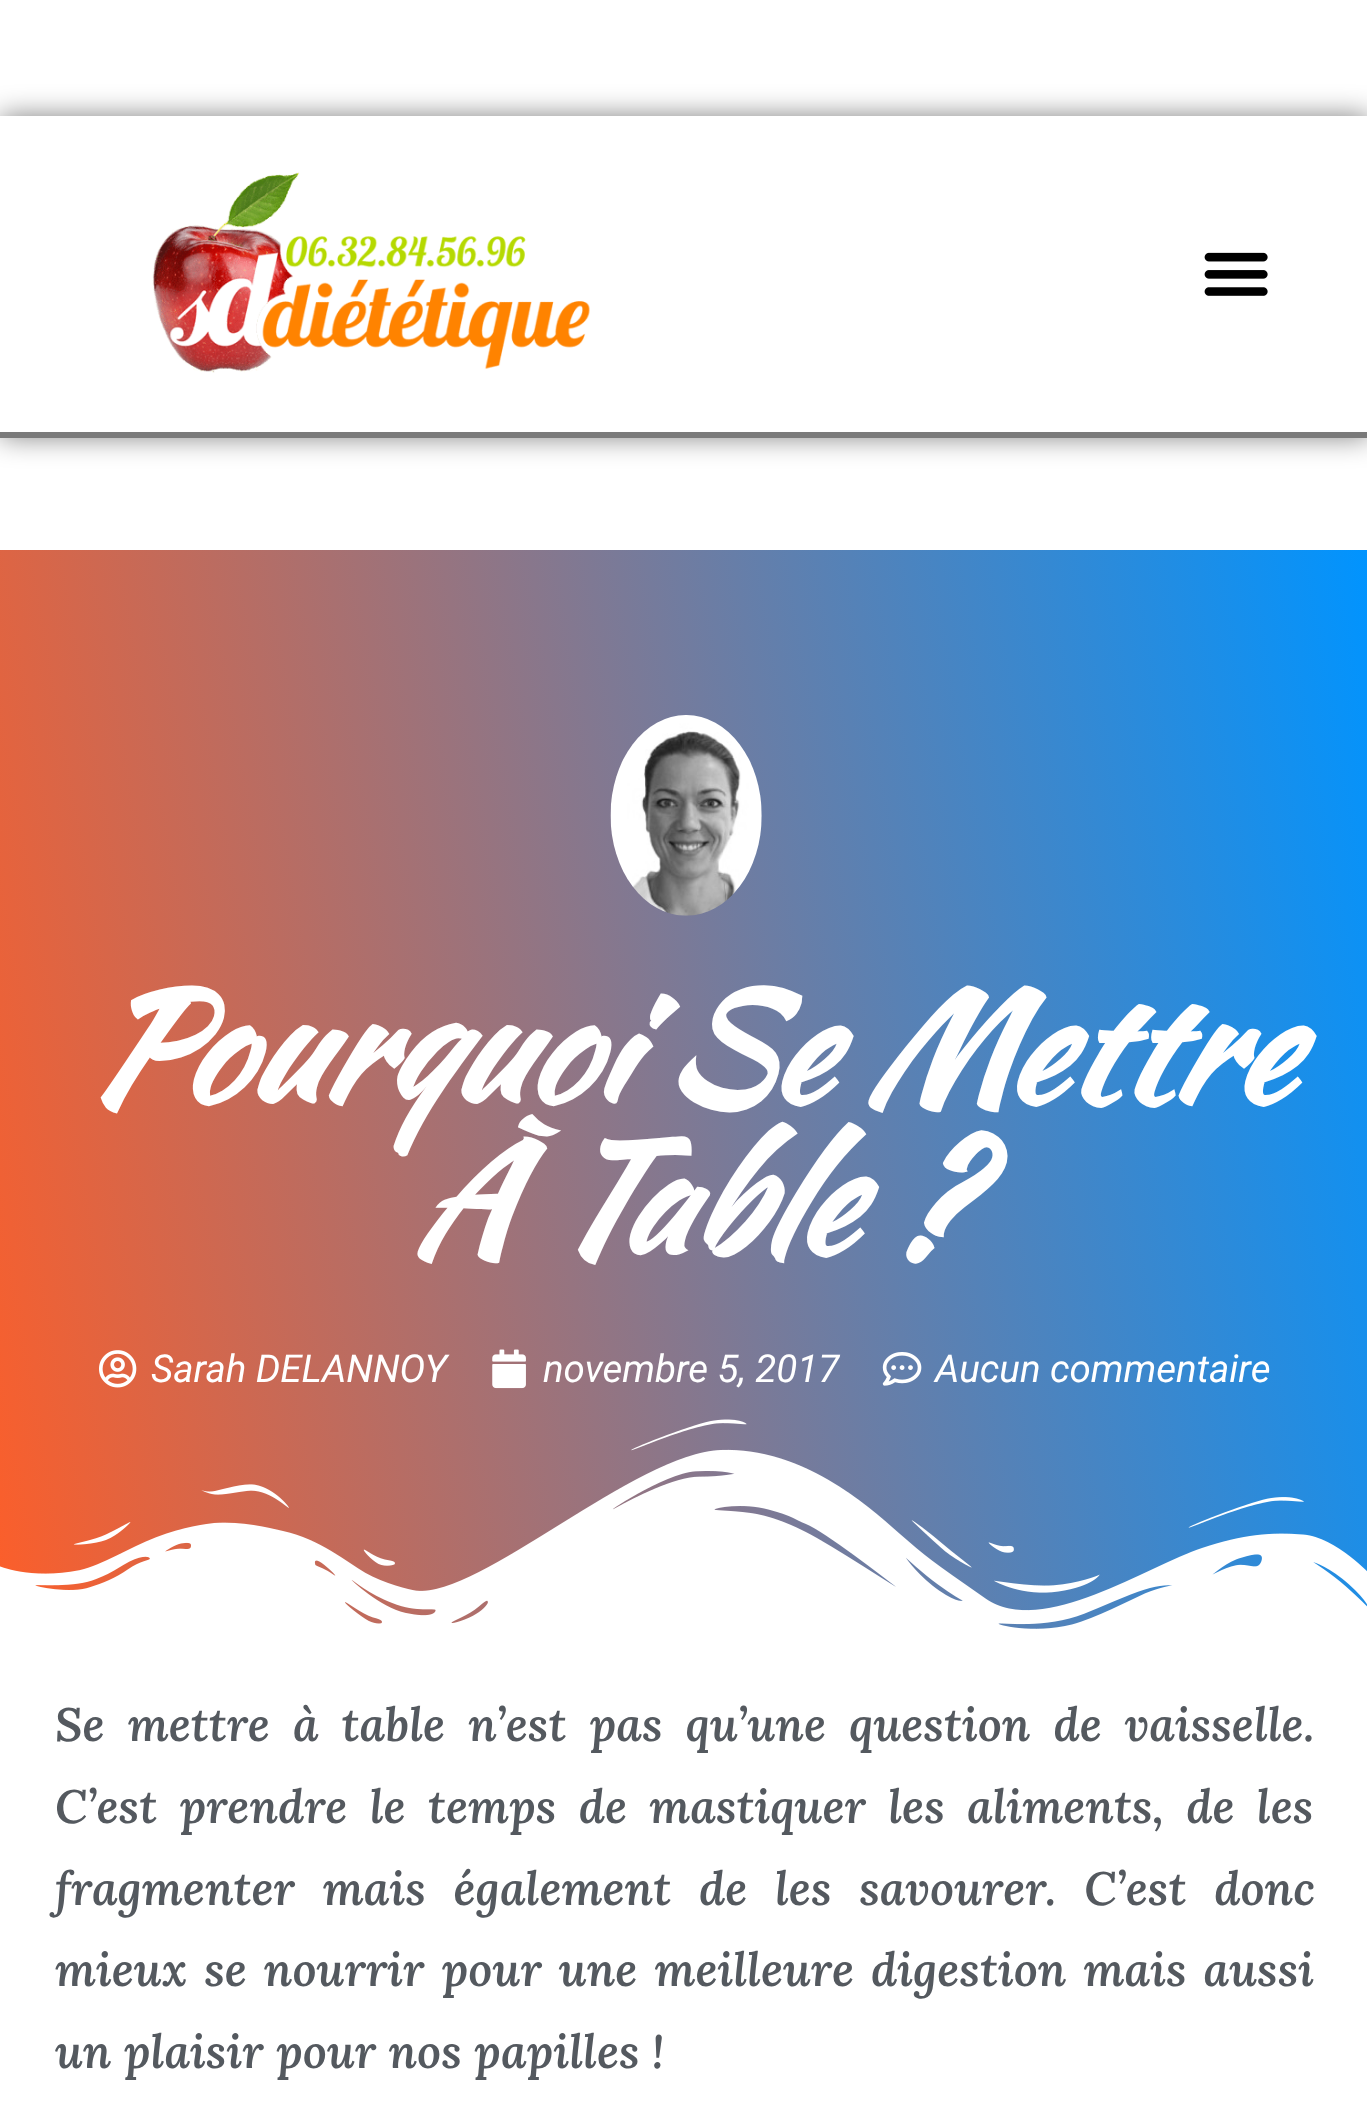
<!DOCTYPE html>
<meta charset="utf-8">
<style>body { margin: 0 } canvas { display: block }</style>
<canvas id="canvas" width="1367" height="2126"></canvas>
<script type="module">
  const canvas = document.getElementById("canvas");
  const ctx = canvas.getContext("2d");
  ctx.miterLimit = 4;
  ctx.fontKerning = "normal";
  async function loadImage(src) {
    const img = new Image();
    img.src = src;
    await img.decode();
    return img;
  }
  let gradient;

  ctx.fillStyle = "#ffffff";
  ctx.fillRect(0, 0, 1367, 2126);
  ctx.save();
  ctx.beginPath();
  ctx.moveTo(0, 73);
  ctx.lineTo(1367, 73);
  ctx.lineTo(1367, 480);
  ctx.lineTo(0, 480);
  ctx.closePath();
  ctx.moveTo(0, 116);
  ctx.lineTo(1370, 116);
  ctx.lineTo(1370, 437);
  ctx.lineTo(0, 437);
  ctx.closePath();
  ctx.clip("evenodd");
  ctx.fillStyle = "rgba(0, 0, 0, 0.5)";
  ctx.filter = "blur(14px)";
  ctx.beginPath();
  ctx.rect(0, 116, 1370, 321);
  ctx.fill();
  ctx.filter = "none";
  ctx.restore();
  ctx.fillStyle = "#7a7a7a";
  ctx.fillRect(0, 432, 1367, 6);
  ctx.drawImage(await loadImage("img1.png"), 152, 172, 438, 201);
  ctx.drawImage(await loadImage("img2.png"), 1204, 252, 64, 44);
  gradient = ctx.createLinearGradient(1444, 970, -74, 1238);
  gradient.addColorStop(0, "#0094ff");
  gradient.addColorStop(1, "#fd5e29");
  ctx.fillStyle = gradient;
  ctx.fillRect(0, 550, 1367, 1079);
  ctx.drawImage(await loadImage("img3.png"), 610, 715, 152, 201);
  ctx.font = "italic bold 151.25px Kaushan Script";
  ctx.fillStyle = "#ffffff";
  ctx.fillText("Pourquoi Se Mettre", 81, 1101);
  ctx.fillText("À Table ?", 409, 1252);
  ctx.drawImage(await loadImage("img4.png"), 99, 1350, 38, 38);
  ctx.font = "italic 38.5px Roboto";
  ctx.fillText("Sarah DELANNOY", 151, 1382);
  ctx.drawImage(await loadImage("img5.png"), 492, 1349, 34, 40);
  ctx.fillText("novembre 5, 2017", 543, 1382);
  ctx.drawImage(await loadImage("img6.png"), 882, 1352, 40, 34);
  ctx.fillText("Aucun commentaire", 935, 1382);
  ctx.drawImage(await loadImage("img7.png"), 0, 1419, 1367, 239);
  ctx.wordSpacing = "10.75px";
  ctx.font = "italic 600 46.75px Lora";
  ctx.fillStyle = "#54595f";
  ctx.fillText("Se mettre à table n’est pas qu’une question de vaisselle.", 55, 1741);
  ctx.wordSpacing = "10px";
  ctx.fillText("C’est prendre le temps de mastiquer les aliments, de les", 55, 1823);
  ctx.wordSpacing = "15.5px";
  ctx.fillText("fragmenter mais également de les savourer. C’est donc", 55, 1905);
  ctx.wordSpacing = "4.75px";
  ctx.fillText("mieux se nourrir pour une meilleure digestion mais aussi", 55, 1986);
  ctx.wordSpacing = "0px";
  ctx.fillText("un plaisir pour nos papilles !", 55, 2068);
</script>
